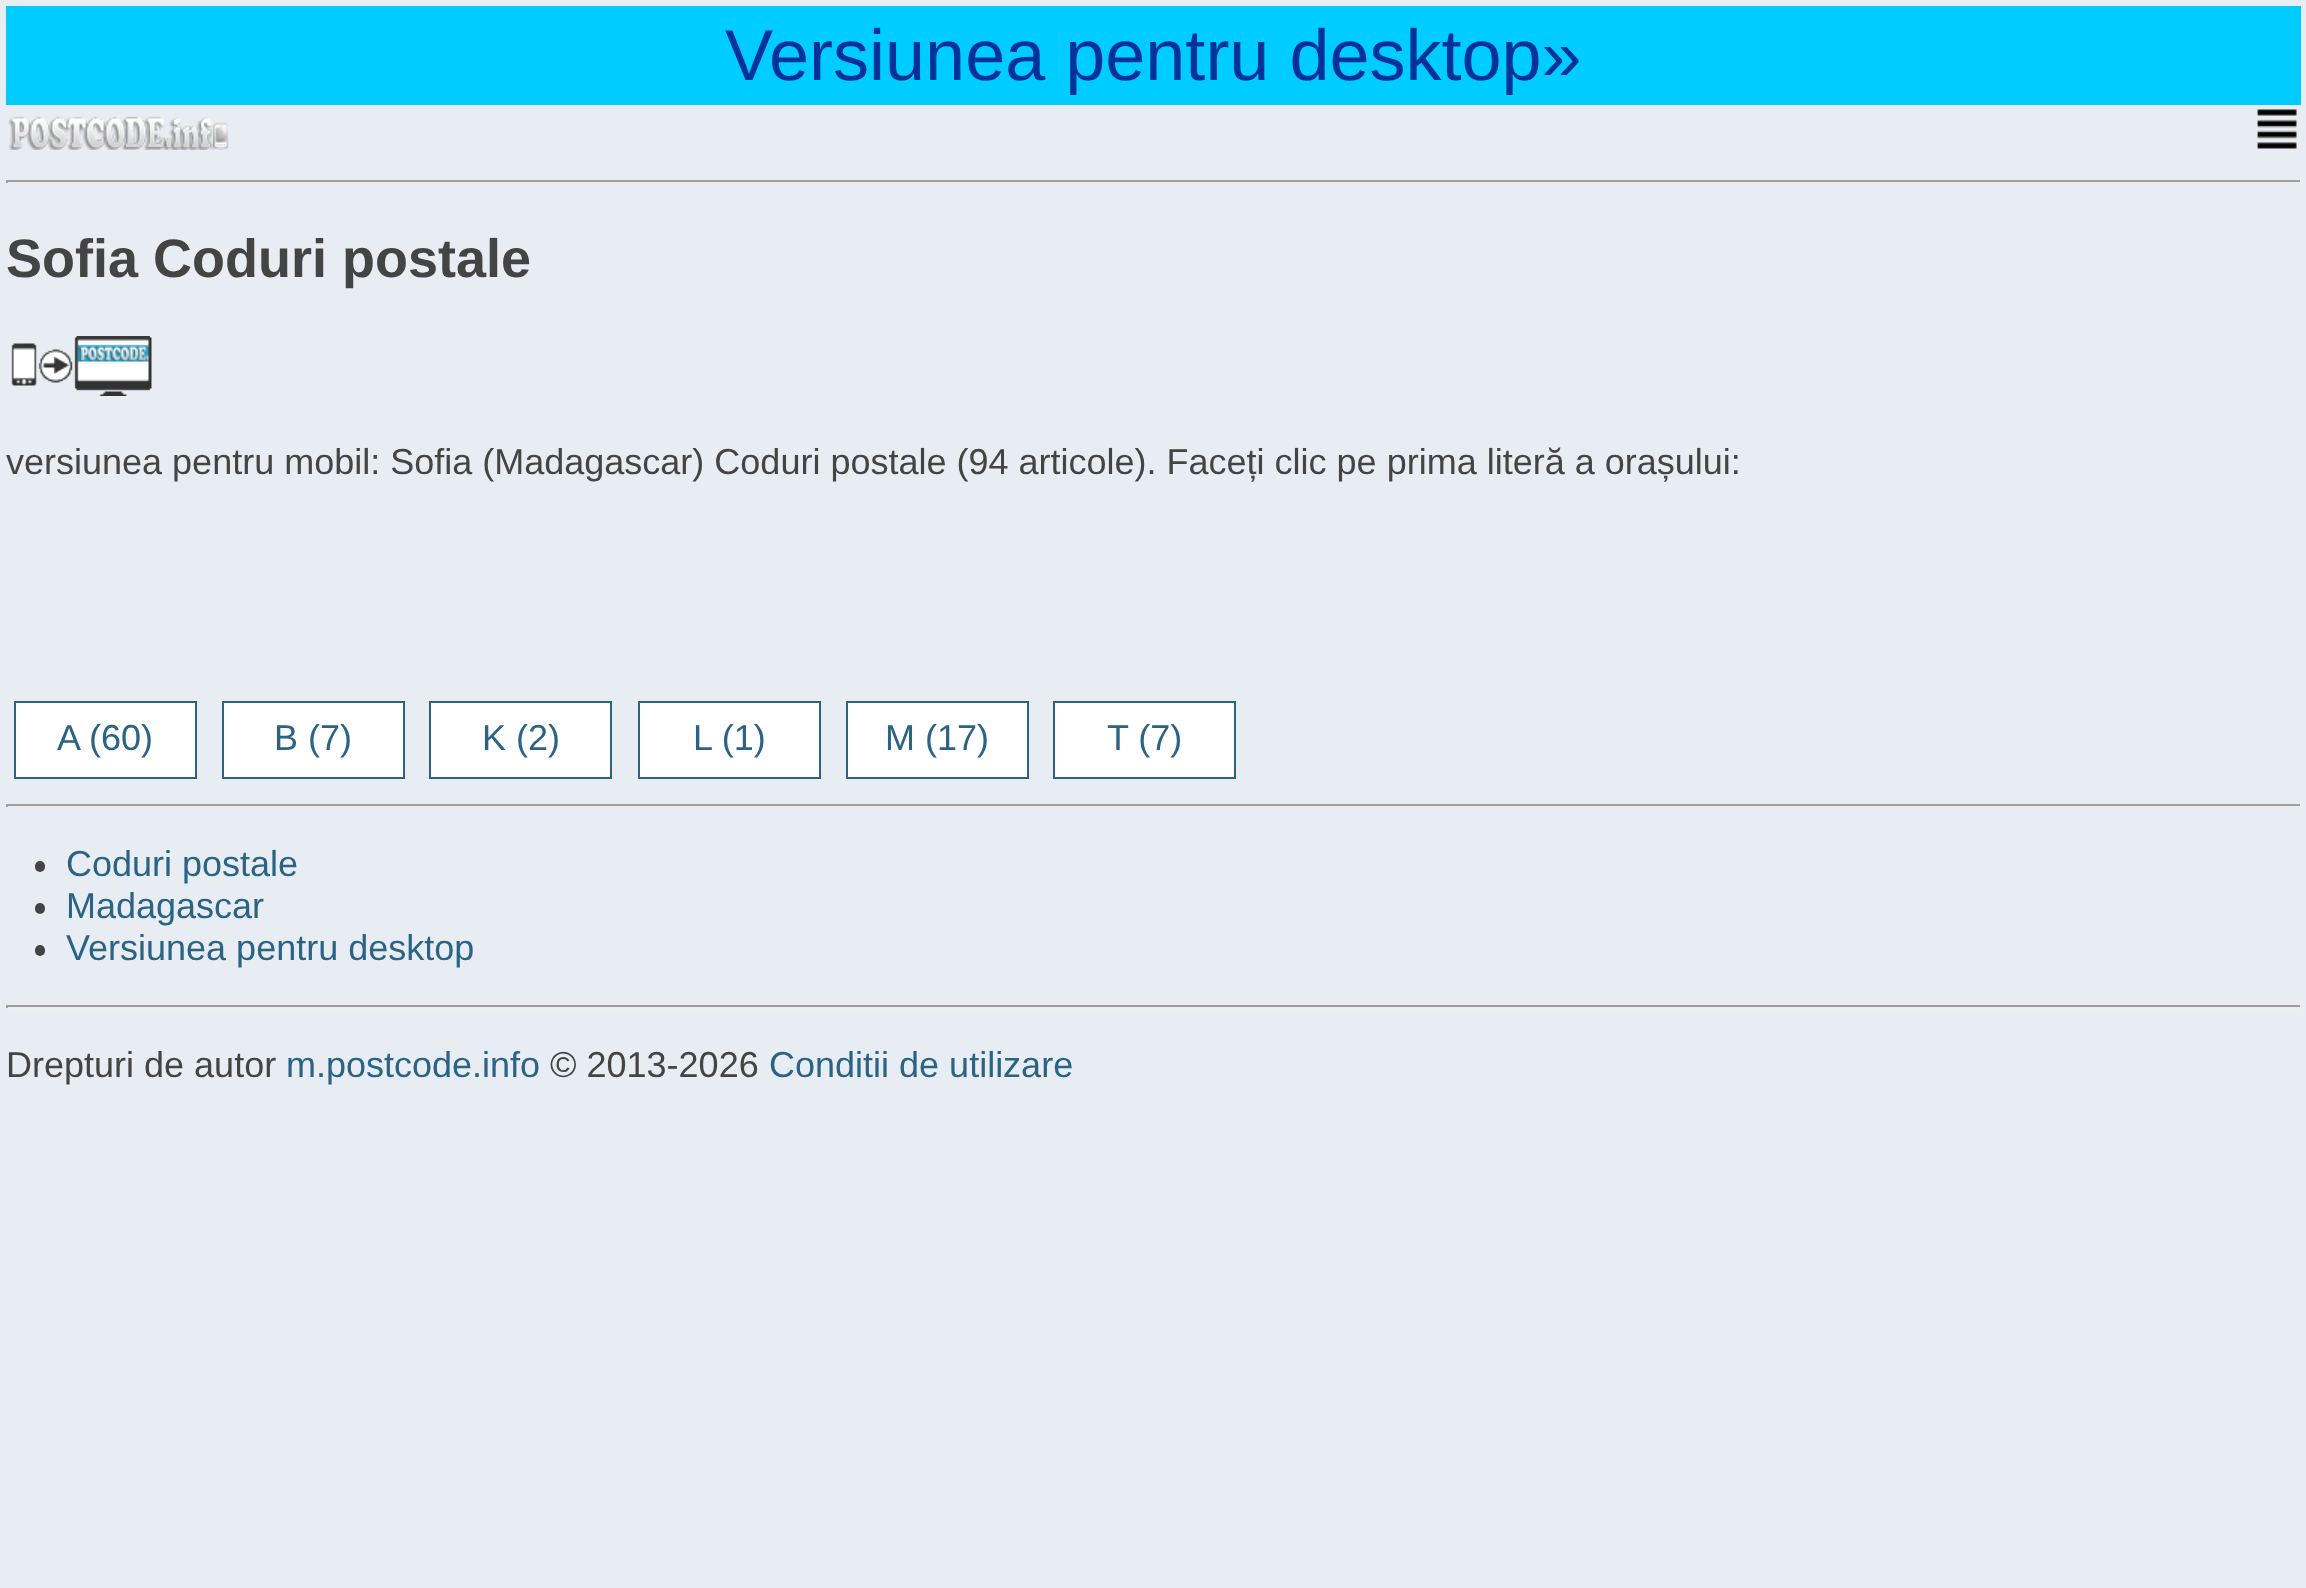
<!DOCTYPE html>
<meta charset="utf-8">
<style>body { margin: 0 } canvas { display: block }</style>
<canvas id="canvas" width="2306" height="1588"></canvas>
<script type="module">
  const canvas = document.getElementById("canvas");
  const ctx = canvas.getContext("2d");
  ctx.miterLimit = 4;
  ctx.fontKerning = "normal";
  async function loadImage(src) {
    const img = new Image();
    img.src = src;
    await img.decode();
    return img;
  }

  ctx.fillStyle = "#e8edf4";
  ctx.fillRect(0, 0, 2306, 1588);
  ctx.fillStyle = "#00ccff";
  ctx.fillRect(6, 6, 2295, 99);
  ctx.font = "72px Liberation Sans";
  ctx.fillStyle = "#003399";
  ctx.fillText("Versiunea pentru desktop»", 725, 80);
  ctx.drawImage(await loadImage("img1.png"), 8, 116, 221, 34);
  ctx.drawImage(await loadImage("img2.png"), 2257, 109, 40, 40);
  ctx.fillStyle = "#9f9f9f";
  ctx.fillRect(6, 180, 2295, 2);
  ctx.fillStyle = "#eeeeee";
  ctx.fillRect(2300, 180, 2, 3);
  ctx.fillRect(6, 182, 2295, 2);
  ctx.fillStyle = "#9f9f9f";
  ctx.fillRect(6, 180, 2, 3);
  ctx.font = "bold 54px Liberation Sans";
  ctx.fillStyle = "#444444";
  ctx.fillText("Sofia Coduri postale", 6, 277);
  ctx.drawImage(await loadImage("img3.png"), 11, 336, 141, 60);
  ctx.font = "36px Liberation Sans";
  ctx.fillText("versiunea pentru mobil: Sofia (Madagascar) Coduri postale (94 articole). Faceți clic pe prima literă a orașului:", 6, 474);
  ctx.fillStyle = "#ffffff";
  ctx.beginPath();
  ctx.rect(15, 702, 181, 76);
  ctx.fill();
  ctx.strokeStyle = "#2a6384";
  ctx.lineWidth = 2;
  ctx.stroke();
  ctx.fillStyle = "#2a6384";
  ctx.fillText("A (60)", 57, 750);
  ctx.fillStyle = "#ffffff";
  ctx.beginPath();
  ctx.rect(223, 702, 181, 76);
  ctx.fill();
  ctx.stroke();
  ctx.fillStyle = "#2a6384";
  ctx.fillText("B (7)", 274, 750);
  ctx.fillStyle = "#ffffff";
  ctx.beginPath();
  ctx.rect(430, 702, 181, 76);
  ctx.fill();
  ctx.stroke();
  ctx.fillStyle = "#2a6384";
  ctx.fillText("K (2)", 482, 750);
  ctx.fillStyle = "#ffffff";
  ctx.beginPath();
  ctx.rect(639, 702, 181, 76);
  ctx.fill();
  ctx.stroke();
  ctx.fillStyle = "#2a6384";
  ctx.fillText("L (1)", 693, 750);
  ctx.fillStyle = "#ffffff";
  ctx.beginPath();
  ctx.rect(847, 702, 181, 76);
  ctx.fill();
  ctx.stroke();
  ctx.fillStyle = "#2a6384";
  ctx.fillText("M (17)", 885, 750);
  ctx.fillStyle = "#ffffff";
  ctx.beginPath();
  ctx.rect(1054, 702, 181, 76);
  ctx.fill();
  ctx.stroke();
  ctx.fillStyle = "#2a6384";
  ctx.fillText("T (7)", 1107, 750);
  ctx.fillStyle = "#9f9f9f";
  ctx.fillRect(6, 804, 2295, 2);
  ctx.fillStyle = "#eeeeee";
  ctx.fillRect(2300, 804, 2, 3);
  ctx.fillRect(6, 806, 2295, 2);
  ctx.fillStyle = "#9f9f9f";
  ctx.fillRect(6, 804, 2, 3);
  ctx.fillStyle = "#444444";
  ctx.beginPath();
  ctx.roundRect(35, 861, 10, 11, 5);
  ctx.fill();
  ctx.fillStyle = "#2a6384";
  ctx.fillText("Coduri postale", 66, 876);
  ctx.fillStyle = "#444444";
  ctx.beginPath();
  ctx.roundRect(35, 903, 10, 11, 5);
  ctx.fill();
  ctx.fillStyle = "#2a6384";
  ctx.fillText("Madagascar", 66, 918);
  ctx.fillStyle = "#444444";
  ctx.beginPath();
  ctx.roundRect(35, 945, 10, 11, 5);
  ctx.fill();
  ctx.fillStyle = "#2a6384";
  ctx.fillText("Versiunea pentru desktop", 66, 960);
  ctx.fillStyle = "#9f9f9f";
  ctx.fillRect(6, 1005, 2295, 2);
  ctx.fillStyle = "#eeeeee";
  ctx.fillRect(2300, 1005, 2, 3);
  ctx.fillRect(6, 1007, 2295, 2);
  ctx.fillStyle = "#9f9f9f";
  ctx.fillRect(6, 1005, 2, 3);
  ctx.fillStyle = "#444444";
  ctx.fillText("Drepturi de autor", 6, 1077);
  ctx.fillStyle = "#2a6384";
  ctx.fillText("m.postcode.info", 286, 1077);
  ctx.fillStyle = "#444444";
  ctx.fillText("© 2013-2026", 550, 1077);
  ctx.fillStyle = "#2a6384";
  ctx.fillText("Conditii de utilizare", 769, 1077);
</script>
